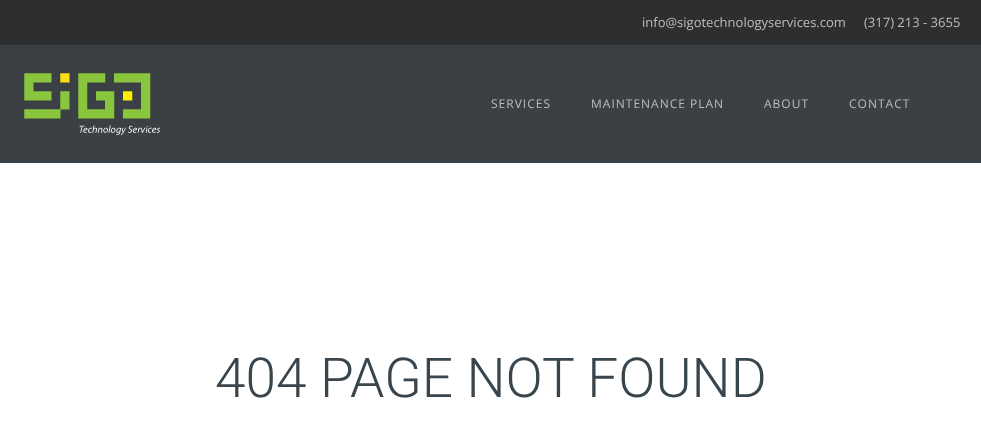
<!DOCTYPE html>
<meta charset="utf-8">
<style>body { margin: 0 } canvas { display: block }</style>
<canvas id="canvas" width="981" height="426"></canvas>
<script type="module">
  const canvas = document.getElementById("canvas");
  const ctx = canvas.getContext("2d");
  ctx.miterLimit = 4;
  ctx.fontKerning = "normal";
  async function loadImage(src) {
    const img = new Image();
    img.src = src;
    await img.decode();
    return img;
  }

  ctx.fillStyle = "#ffffff";
  ctx.fillRect(0, 0, 981, 426);
  ctx.fillStyle = "#2c2e30";
  ctx.fillRect(0, 0, 981, 45);
  ctx.font = "13px Open Sans";
  ctx.fillStyle = "#bcbcbc";
  ctx.fillText("info@sigotechnologyservices.com", 642, 27);
  ctx.fillText("(317) 213 - 3655", 864, 27);
  ctx.fillStyle = "#3b4044";
  ctx.fillRect(0, 45, 981, 118);
  ctx.drawImage(await loadImage("img1.png"), 24, 73, 136, 62);
  ctx.letterSpacing = "1px";
  ctx.font = "12px Open Sans";
  ctx.fillStyle = "#bcbcbc";
  ctx.fillText("SERVICES", 491, 108);
  ctx.fillText("MAINTENANCE PLAN", 591, 108);
  ctx.fillText("ABOUT", 764, 108);
  ctx.fillText("CONTACT", 849, 108);
  ctx.letterSpacing = "0px";
  ctx.font = "300 55px Roboto";
  ctx.fillStyle = "#39454d";
  ctx.fillText("404 PAGE NOT FOUND", 215, 397);
</script>
